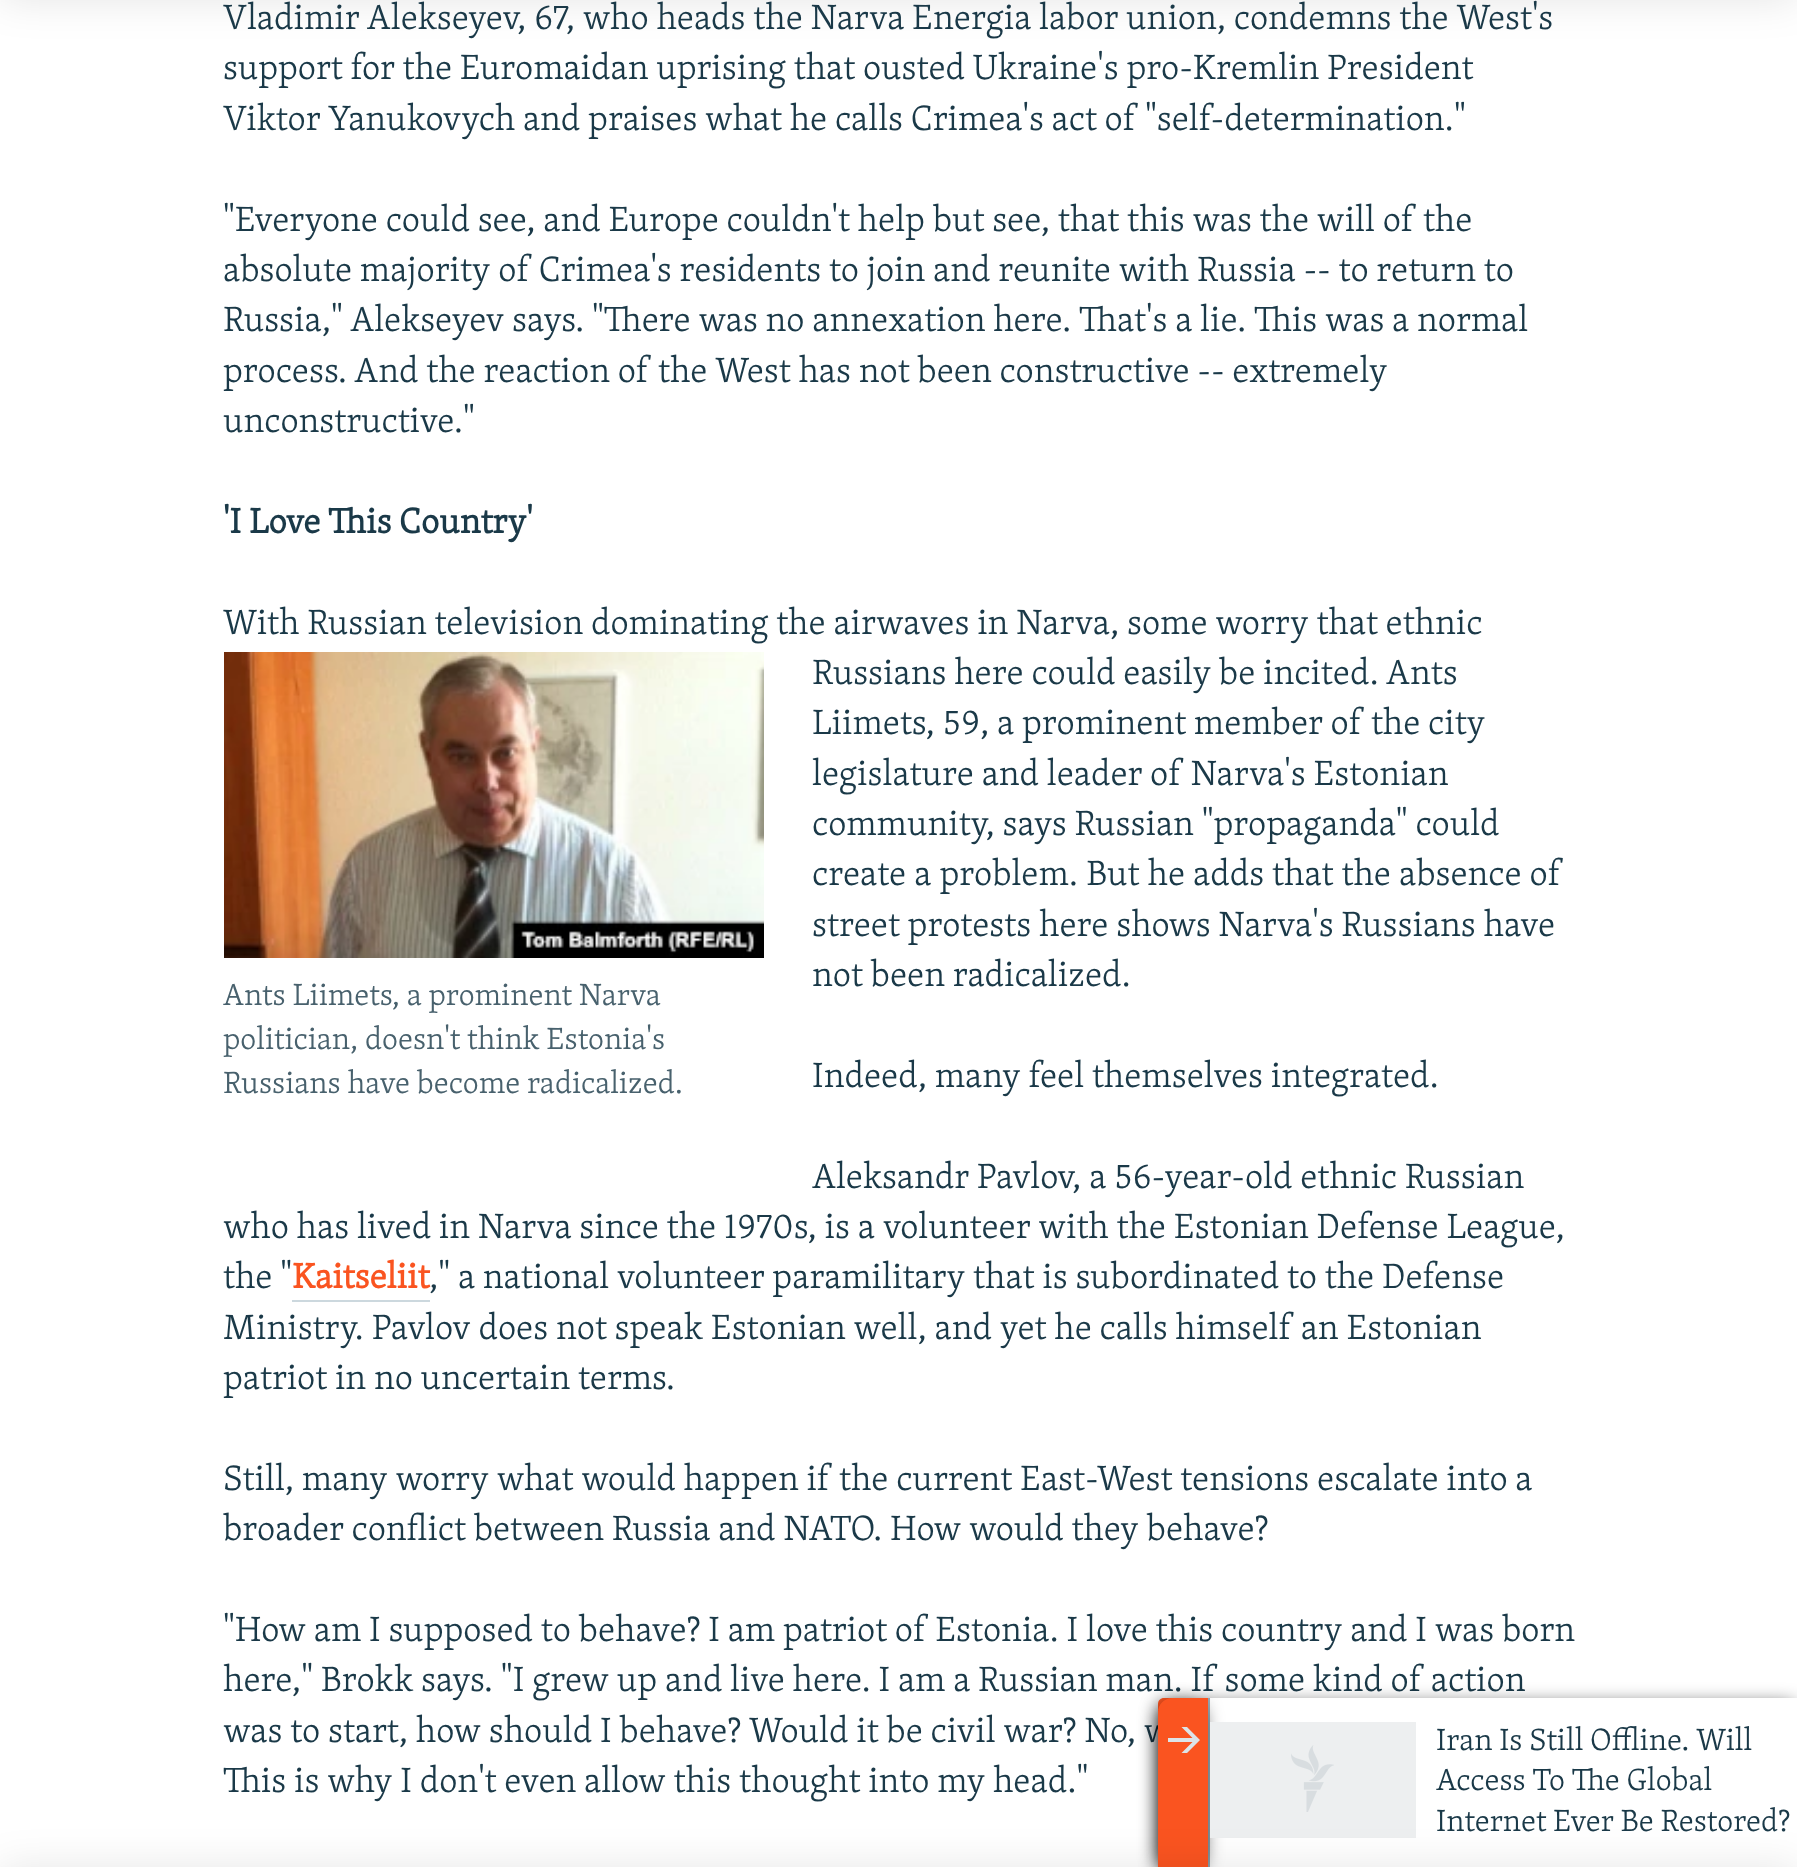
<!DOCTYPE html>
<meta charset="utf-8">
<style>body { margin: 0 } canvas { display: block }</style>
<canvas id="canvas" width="1797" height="1867"></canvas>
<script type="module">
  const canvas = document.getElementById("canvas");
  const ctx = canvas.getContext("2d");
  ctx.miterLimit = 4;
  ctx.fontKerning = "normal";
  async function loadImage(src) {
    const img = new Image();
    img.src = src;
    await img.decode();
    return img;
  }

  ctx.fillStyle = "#ffffff";
  ctx.fillRect(0, 0, 1797, 1867);
  ctx.fillStyle = "rgba(0, 0, 0, 0.1)";
  ctx.filter = "blur(20px)";
  ctx.beginPath();
  ctx.rect(0, -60, 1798, 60);
  ctx.fill();
  ctx.filter = "none";
  ctx.font = "300 36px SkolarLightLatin";
  ctx.fillStyle = "#1a3948";
  ctx.fillText("here,\" Brokk says. \"I grew up and live here. I am a Russian man. If some kind of action", 223, 1691);
  ctx.fillText("was to start, how should I behave? Would it be civil war? No, w", 223, 1742);
  ctx.fillStyle = "rgba(0, 0, 0, 0.85)";
  ctx.filter = "blur(10px)";
  ctx.beginPath();
  ctx.roundRect(1162, 1706, 632, 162, 2);
  ctx.fill();
  ctx.filter = "none";
  ctx.fillStyle = "#fa5420";
  ctx.beginPath();
  ctx.moveTo(1164, 1698);
  ctx.lineTo(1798, 1698);
  ctx.lineTo(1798, 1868);
  ctx.lineTo(1158, 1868);
  ctx.lineTo(1158, 1704);
  ctx.bezierCurveTo(1158, 1700.5, 1160.5, 1698, 1164, 1698);
  ctx.closePath();
  ctx.fill();
  ctx.fillStyle = "#ffffff";
  ctx.fillRect(1210, 1698, 587, 169);
  ctx.fillStyle = "#95adb9";
  ctx.fillRect(1208, 1698, 2, 169);
  ctx.save();
  ctx.beginPath();
  ctx.moveTo(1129, 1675);
  ctx.lineTo(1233, 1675);
  ctx.lineTo(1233, 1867);
  ctx.lineTo(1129, 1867);
  ctx.closePath();
  ctx.moveTo(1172, 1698);
  ctx.lineTo(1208, 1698);
  ctx.lineTo(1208, 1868);
  ctx.lineTo(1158, 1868);
  ctx.lineTo(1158, 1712);
  ctx.bezierCurveTo(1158, 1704.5, 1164.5, 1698, 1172, 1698);
  ctx.closePath();
  ctx.clip("evenodd");
  ctx.fillStyle = "rgba(0, 0, 0, 0.85)";
  ctx.filter = "blur(10px)";
  ctx.beginPath();
  ctx.roundRect(1160, 1706, 42, 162, 10);
  ctx.fill();
  ctx.filter = "none";
  ctx.restore();
  ctx.fillStyle = "#edeff0";
  ctx.fillRect(1210, 1722, 206, 116);
  ctx.drawImage(await loadImage("img2.png"), 1291, 1745, 43, 67);
  ctx.fillStyle = "rgba(0, 0, 0, 0.1)";
  ctx.filter = "blur(20px)";
  ctx.beginPath();
  ctx.rect(0, 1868, 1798, 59);
  ctx.fill();
  ctx.filter = "none";
  ctx.fillStyle = "#1a3948";
  ctx.fillText("Vladimir Alekseyev, 67, who heads the Narva Energia labor union, condemns the West's", 223, 29);
  ctx.fillText("support for the Euromaidan uprising that ousted Ukraine's pro-Kremlin President", 223, 79);
  ctx.fillText("Viktor Yanukovych and praises what he calls Crimea's act of \"self-determination.\"", 223, 130);
  ctx.fillText("\"Everyone could see, and Europe couldn't help but see, that this was the will of the", 223, 231);
  ctx.fillText("absolute majority of Crimea's residents to join and reunite with Russia -- to return to", 223, 281);
  ctx.fillText("Russia,\" Alekseyev says. \"There was no annexation here. That's a lie. This was a normal", 223, 331);
  ctx.fillText("process. And the reaction of the West has not been constructive -- extremely", 223, 382);
  ctx.fillText("unconstructive.\"", 223, 432);
  ctx.font = "bold 36px SkolarLightLatin";
  ctx.fillText("'I Love This Country'", 223, 533);
  ctx.font = "300 36px SkolarLightLatin";
  ctx.fillText("With Russian television dominating the airwaves in Narva, some worry that ethnic", 223, 634);
  ctx.fillText("Russians here could easily be incited.", 812, 684);
  ctx.fillText("Ants", 1386, 684);
  ctx.fillText("Liimets, 59, a prominent member of the city", 812, 734);
  ctx.fillText("legislature and leader of Narva's Estonian", 812, 785);
  ctx.fillText("community, says Russian \"propaganda\" could", 812, 835);
  ctx.wordSpacing = "0.25px";
  ctx.fillText("create a problem. But he adds that the absence of", 812, 885);
  ctx.wordSpacing = "0px";
  ctx.fillText("street protests here shows Narva's Russians have", 812, 936);
  ctx.fillText("not been radicalized.", 812, 986);
  ctx.drawImage(await loadImage("img1.png"), 224, 652, 540, 306);
  ctx.font = "300 31.5px SkolarLightLatin";
  ctx.fillStyle = "#48616d";
  ctx.fillText("Ants Liimets, a prominent Narva", 223, 1005);
  ctx.fillText("politician, doesn't think Estonia's", 223, 1049);
  ctx.fillText("Russians have become radicalized.", 223, 1093);
  ctx.font = "300 36px SkolarLightLatin";
  ctx.fillStyle = "#1a3948";
  ctx.fillText("Indeed, many feel themselves integrated.", 812, 1087);
  ctx.fillText("Aleksandr Pavlov, a 56-year-old ethnic Russian", 812, 1188);
  ctx.fillText("who has lived in Narva since the 1970s, is a volunteer with the Estonian Defense League,", 223, 1238);
  ctx.fillText("the \"", 223, 1288);
  ctx.font = "bold 36px SkolarLightLatin";
  ctx.fillStyle = "#fa5420";
  ctx.fillText("Kaitseliit", 292, 1288);
  ctx.fillStyle = "#ccd8de";
  ctx.fillRect(292, 1300, 138, 2);
  ctx.font = "300 36px SkolarLightLatin";
  ctx.fillStyle = "#1a3948";
  ctx.fillText(",\" a national volunteer paramilitary that is subordinated to the Defense", 429, 1288);
  ctx.fillText("Ministry. Pavlov does not speak Estonian well, and yet he calls himself an Estonian", 223, 1339);
  ctx.fillText("patriot in no uncertain terms.", 223, 1389);
  ctx.fillText("Still, many worry what would happen if the current East-West tensions escalate into a", 223, 1490);
  ctx.fillText("broader conflict between Russia and NATO. How would they behave?", 223, 1540);
  ctx.fillText("\"How am I supposed to behave? I am patriot of Estonia. I love this country and I was born", 223, 1641);
  ctx.fillText("This is why I don't even allow this thought into my head.\"", 223, 1792);
  ctx.fillStyle = "#dce4e8";
  ctx.beginPath();
  ctx.moveTo(1200, 1740);
  ctx.lineTo(1187, 1727);
  ctx.lineTo(1181.5, 1727);
  ctx.lineTo(1192.5, 1738);
  ctx.lineTo(1168, 1738);
  ctx.lineTo(1168, 1742);
  ctx.lineTo(1192.5, 1742);
  ctx.lineTo(1181.5, 1753);
  ctx.lineTo(1187, 1753);
  ctx.closePath();
  ctx.fill();
  ctx.font = "300 31.5px SkolarLightLatin";
  ctx.fillStyle = "#1a3948";
  ctx.fillText("Iran Is Still Offline. Will", 1436, 1750);
  ctx.fillText("Access To The Global", 1436, 1790);
  ctx.fillText("Internet Ever Be Restored?", 1436, 1831);
</script>
